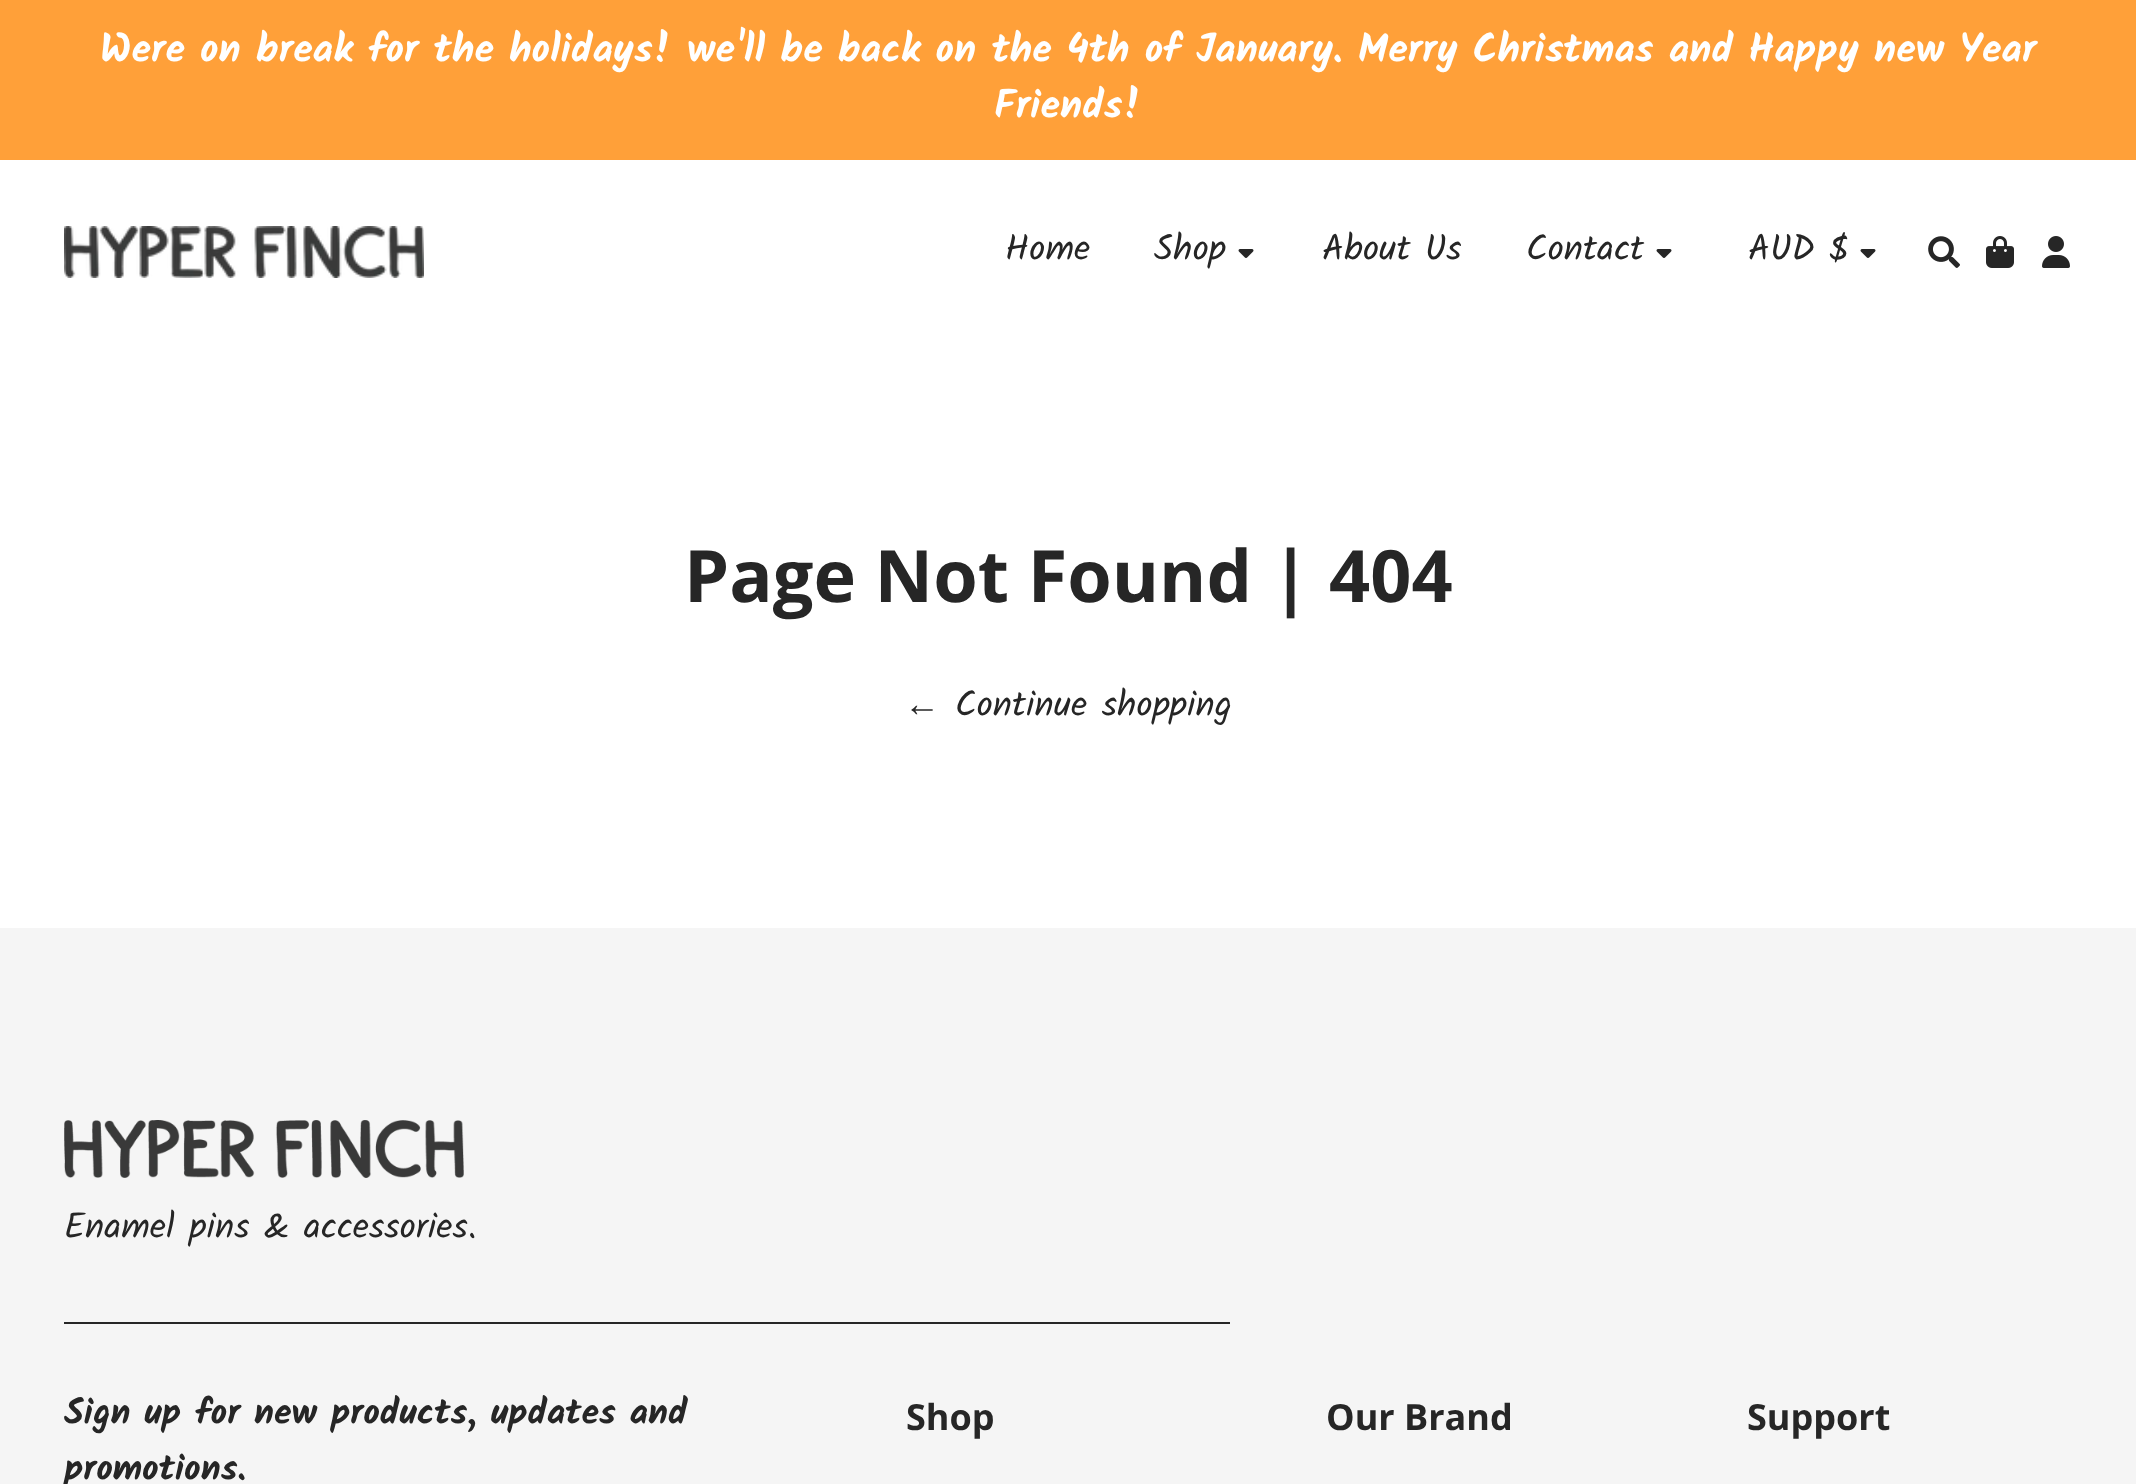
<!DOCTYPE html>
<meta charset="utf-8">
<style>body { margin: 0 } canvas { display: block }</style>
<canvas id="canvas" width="2136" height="1484"></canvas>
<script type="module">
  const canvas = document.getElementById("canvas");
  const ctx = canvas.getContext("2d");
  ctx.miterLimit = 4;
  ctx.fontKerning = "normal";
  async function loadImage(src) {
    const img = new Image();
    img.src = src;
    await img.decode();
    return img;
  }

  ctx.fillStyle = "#ffffff";
  ctx.fillRect(0, 0, 2136, 1484);
  ctx.fillStyle = "#ffa039";
  ctx.fillRect(0, 0, 2136, 160);
  ctx.font = "bold 40px Kalam";
  ctx.fillStyle = "#ffffff";
  ctx.fillText("Were on break for the holidays! we'll be back on the 4th of January. Merry Christmas and Happy new Year", 100, 62);
  ctx.fillText("Friends!", 994, 118);
  ctx.drawImage(await loadImage("img1.png"), 64, 226, 360, 52);
  ctx.font = "36px Kalam";
  ctx.fillStyle = "#262626";
  ctx.fillText("Home", 1005, 260);
  ctx.fillText("Shop", 1154, 260);
  ctx.drawImage(await loadImage("img2.png"), 1238, 249, 16, 9);
  ctx.fillText("About Us", 1322, 260);
  ctx.fillText("Contact", 1526, 260);
  ctx.drawImage(await loadImage("img2.png"), 1656, 249, 16, 9);
  ctx.fillText("AUD $", 1748, 260);
  ctx.drawImage(await loadImage("img2.png"), 1860, 249, 16, 9);
  ctx.drawImage(await loadImage("img3.png"), 1928, 236, 32, 32);
  ctx.drawImage(await loadImage("img4.png"), 1986, 236, 28, 32);
  ctx.drawImage(await loadImage("img5.png"), 2042, 236, 28, 32);
  ctx.font = "bold 72px Open Sans";
  ctx.fillText("Page Not Found | 404", 684, 602);
  ctx.font = "36px Liberation Serif";
  ctx.fillText("←", 904, 716);
  ctx.font = "36px Kalam";
  ctx.fillText("Continue shopping", 955, 716);
  ctx.fillStyle = "#f5f5f5";
  ctx.fillRect(0, 928, 2136, 556);
  ctx.drawImage(await loadImage("img6.png"), 64, 1120, 400, 58);
  ctx.fillStyle = "#262626";
  ctx.fillText("Enamel pins & accessories.", 64, 1238);
  ctx.fillRect(64, 1322, 1166, 2);
  ctx.font = "bold 36px Kalam";
  ctx.fillText("Sign up for new products, updates and", 64, 1424);
  ctx.fillText("promotions.", 64, 1480);
  ctx.font = "bold 36px Open Sans";
  ctx.fillText("Shop", 906, 1430);
  ctx.fillText("Our Brand", 1326, 1430);
  ctx.fillText("Support", 1747, 1430);
</script>
